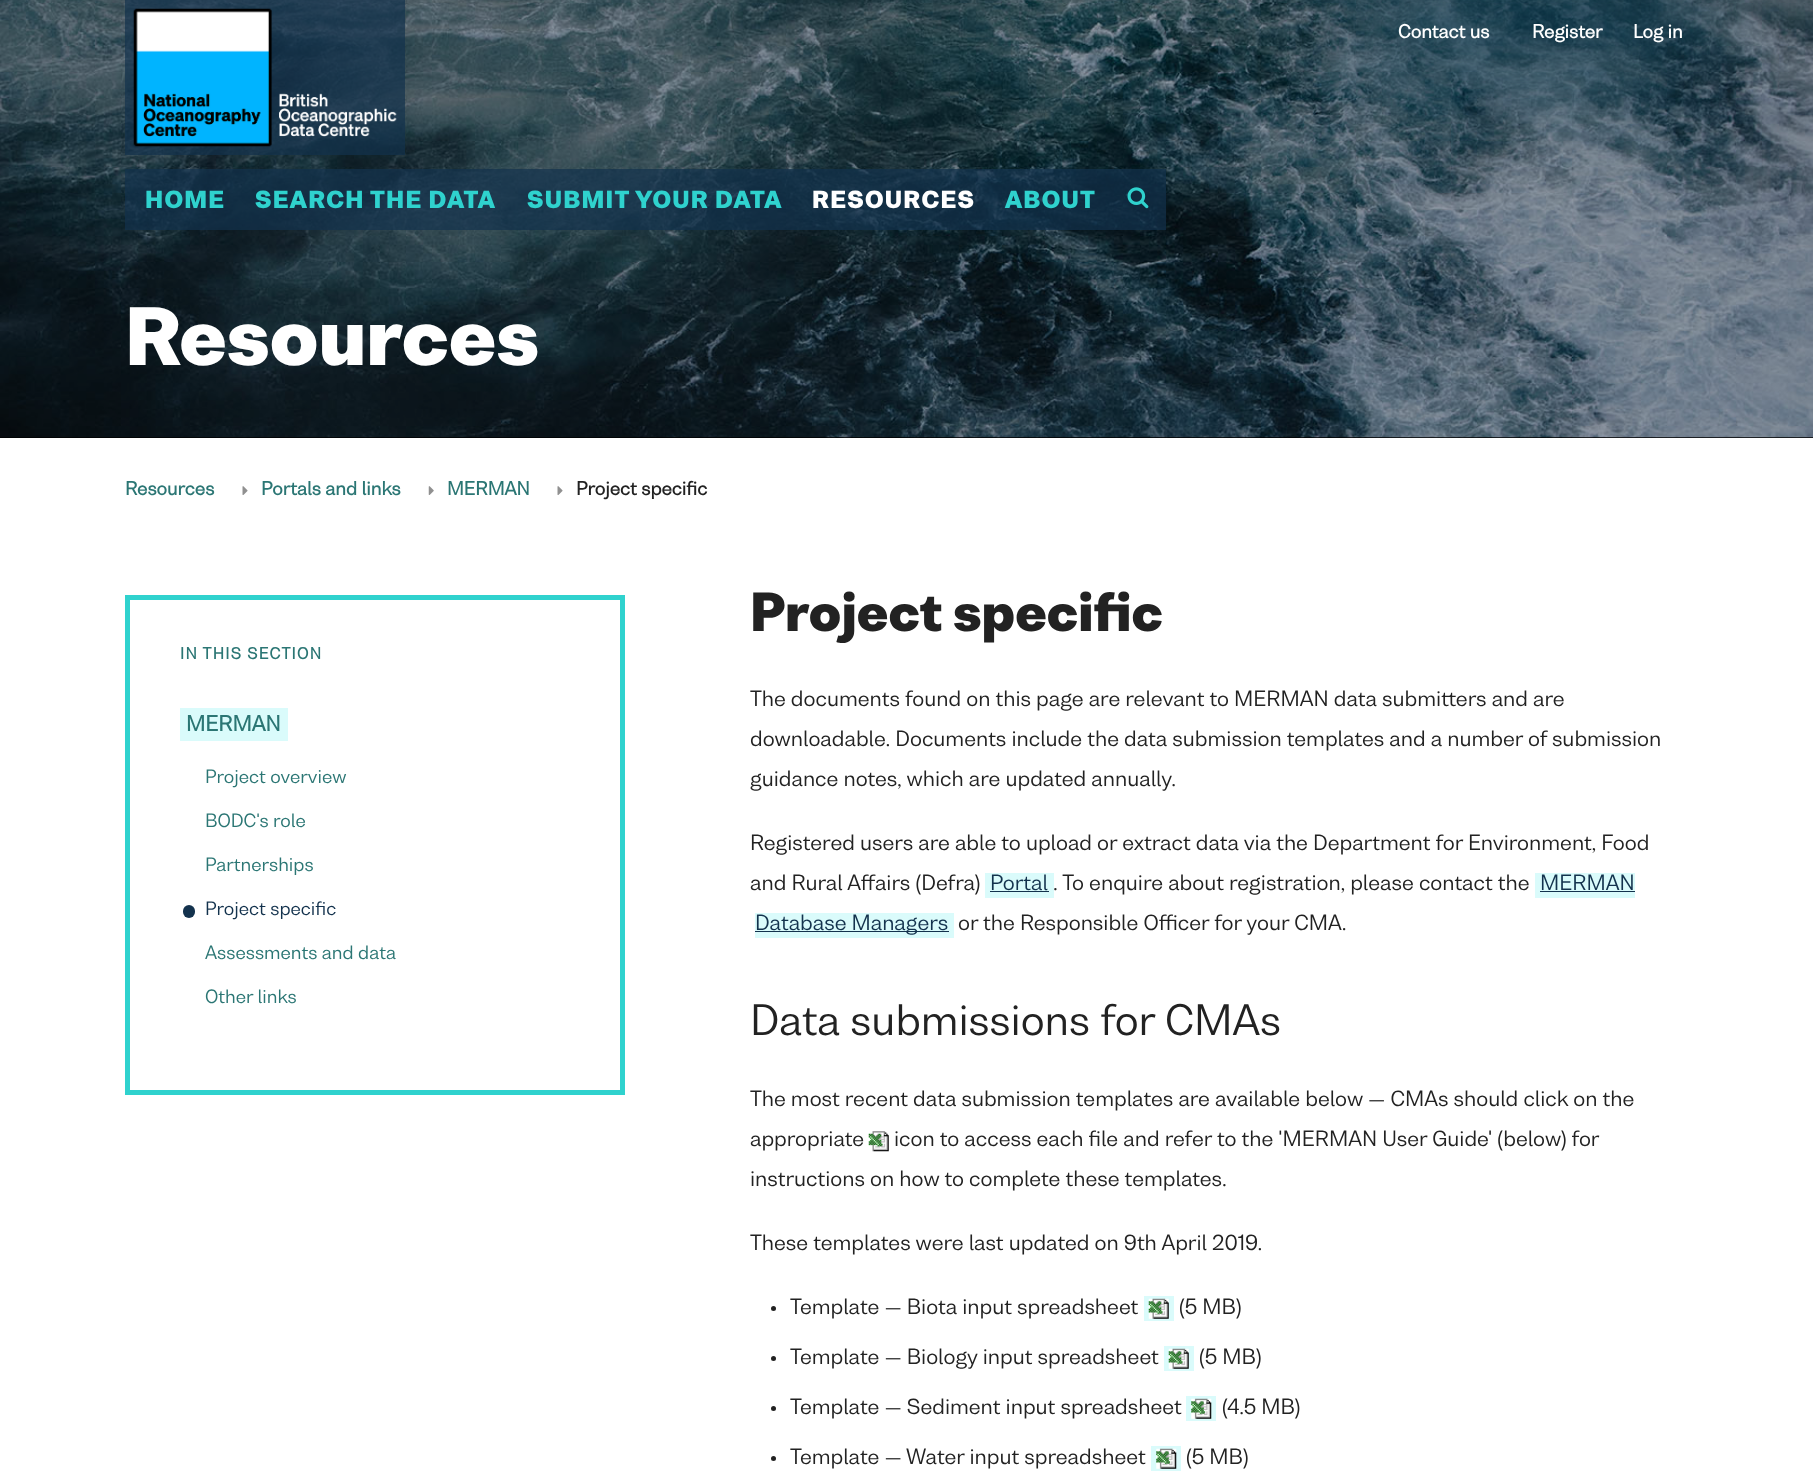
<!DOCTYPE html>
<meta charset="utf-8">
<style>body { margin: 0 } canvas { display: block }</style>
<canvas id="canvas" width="1813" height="1475"></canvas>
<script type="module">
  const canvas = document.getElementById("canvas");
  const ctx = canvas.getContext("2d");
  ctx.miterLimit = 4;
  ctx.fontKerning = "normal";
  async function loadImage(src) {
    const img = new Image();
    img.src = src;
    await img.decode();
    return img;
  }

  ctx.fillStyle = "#ffffff";
  ctx.fillRect(0, 0, 1813, 1475);
  ctx.fillStyle = "#000000";
  ctx.fillRect(0, 0, 1813, 438);
  ctx.drawImage(await loadImage("img3.png"), 0, 0, 1813, 438);
  ctx.fillStyle = "rgba(19, 50, 77, 0.7)";
  ctx.fillRect(125, 0, 280, 155);
  ctx.drawImage(await loadImage("img1.png"), 133, 8, 264, 139);
  ctx.fillStyle = "rgba(12, 58, 77, 0.8)";
  ctx.filter = "blur(50px)";
  ctx.beginPath();
  ctx.rect(1354, -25, 347, 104);
  ctx.fill();
  ctx.filter = "none";
  ctx.font = "bold 17.5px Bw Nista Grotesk";
  ctx.fillStyle = "#ffffff";
  ctx.fillText("Contact us", 1398, 38);
  ctx.fillText("Register", 1532, 38);
  ctx.fillText("Log in", 1633, 38);
  ctx.fillStyle = "rgba(19, 50, 77, 0.7)";
  ctx.fillRect(125, 169, 115, 61);
  ctx.letterSpacing = "1.25px";
  ctx.font = "900 22.5px Bw Nista Grotesk";
  ctx.fillStyle = "#2fd2ce";
  ctx.fillText("HOME", 145, 208);
  ctx.fillStyle = "rgba(19, 50, 77, 0.7)";
  ctx.fillRect(240, 169, 271, 61);
  ctx.fillStyle = "#2fd2ce";
  ctx.fillText("SEARCH THE DATA", 255, 208);
  ctx.fillStyle = "rgba(19, 50, 77, 0.7)";
  ctx.fillRect(511, 169, 287, 61);
  ctx.fillStyle = "#2fd2ce";
  ctx.fillText("SUBMIT YOUR DATA", 527, 208);
  ctx.fillStyle = "rgba(19, 50, 77, 0.7)";
  ctx.fillRect(798, 169, 192, 61);
  ctx.fillStyle = "#ffffff";
  ctx.fillText("RESOURCES", 812, 208);
  ctx.fillStyle = "rgba(19, 50, 77, 0.7)";
  ctx.fillRect(990, 169, 121, 61);
  ctx.fillStyle = "#2fd2ce";
  ctx.fillText("ABOUT", 1005, 208);
  ctx.fillStyle = "rgba(19, 50, 77, 0.7)";
  ctx.fillRect(1111, 169, 55, 61);
  ctx.drawImage(await loadImage("img2.png"), 1127, 187, 22, 22);
  ctx.letterSpacing = "0px";
  ctx.font = "900 75px Bw Nista Grotesk";
  ctx.fillStyle = "#ffffff";
  ctx.fillText("Resources", 125, 365);
  ctx.font = "bold 17.5px Bw Nista Grotesk";
  ctx.fillStyle = "#2b7674";
  ctx.fillText("Resources", 125, 495);
  ctx.drawImage(await loadImage("img4.png"), 242, 486, 6, 9);
  ctx.fillText("Portals and links", 261, 495);
  ctx.drawImage(await loadImage("img5.png"), 428, 486, 6, 9);
  ctx.fillText("MERMAN", 447, 495);
  ctx.drawImage(await loadImage("img4.png"), 557, 486, 6, 9);
  ctx.fillStyle = "#222222";
  ctx.fillText("Project specific", 576, 495);
  ctx.strokeStyle = "#2fd2ce";
  ctx.lineWidth = 5;
  ctx.strokeRect(127.5, 597.5, 495, 495);
  ctx.letterSpacing = "1.25px";
  ctx.font = "bold 15px Bw Nista Grotesk";
  ctx.fillStyle = "#2b7674";
  ctx.fillText("IN THIS SECTION", 180, 659);
  ctx.fillStyle = "#dafbfb";
  ctx.fillRect(180, 708, 108, 33);
  ctx.letterSpacing = "0px";
  ctx.font = "bold 20px Bw Nista Grotesk";
  ctx.fillStyle = "#2b7674";
  ctx.fillText("MERMAN", 186, 731);
  ctx.font = "17.5px Bw Nista Grotesk";
  ctx.fillText("Project overview", 205, 783);
  ctx.fillText("BODC's role", 205, 827);
  ctx.fillText("Partnerships", 205, 871);
  ctx.fillStyle = "#13324d";
  ctx.beginPath();
  ctx.roundRect(183, 905, 12, 13, 6);
  ctx.fill();
  ctx.fillText("Project specific", 205, 915);
  ctx.fillStyle = "#2b7674";
  ctx.fillText("Assessments and data", 205, 959);
  ctx.fillText("Other links", 205, 1003);
  ctx.font = "900 50px Bw Nista Grotesk";
  ctx.fillStyle = "#222222";
  ctx.fillText("Project specific", 750, 631);
  ctx.font = "20px Bw Nista Grotesk";
  ctx.fillText("The documents found on this page are relevant to MERMAN data submitters and are", 750, 706);
  ctx.fillText("downloadable. Documents include the data submission templates and a number of submission", 750, 746);
  ctx.fillText("guidance notes, which are updated annually.", 750, 786);
  ctx.fillText("Registered users are able to upload or extract data via the Department for Environment, Food", 750, 850);
  ctx.fillText("and Rural Affairs (Defra)", 750, 890);
  ctx.fillStyle = "#dafbfb";
  ctx.fillRect(985, 873, 69, 25);
  ctx.fillStyle = "#13324d";
  ctx.fillText("Portal", 990, 890);
  ctx.fillRect(990, 891, 59, 1);
  ctx.fillStyle = "#222222";
  ctx.fillText(". To enquire about registration, please contact the", 1053, 890);
  ctx.fillStyle = "#dafbfb";
  ctx.fillRect(1535, 873, 100, 25);
  ctx.fillStyle = "#13324d";
  ctx.fillText("MERMAN", 1540, 890);
  ctx.fillRect(1540, 891, 95, 1);
  ctx.fillStyle = "#dafbfb";
  ctx.fillRect(755, 913, 199, 25);
  ctx.fillStyle = "#13324d";
  ctx.fillRect(755, 931, 194, 1);
  ctx.fillText("Database Managers", 755, 930);
  ctx.fillStyle = "#222222";
  ctx.fillText("or the Responsible Officer for your CMA.", 958, 930);
  ctx.font = "40px Bw Nista Grotesk";
  ctx.fillText("Data submissions for CMAs", 750, 1035);
  ctx.font = "20px Bw Nista Grotesk";
  ctx.fillText("The most recent data submission templates are available below — CMAs should click on the", 750, 1106);
  ctx.fillText("appropriate", 750, 1146);
  ctx.drawImage(await loadImage("img6.png"), 868, 1131, 21, 21);
  ctx.fillText("icon to access each file and refer to the 'MERMAN User Guide' (below) for", 894, 1146);
  ctx.fillText("instructions on how to complete these templates.", 750, 1186);
  ctx.fillText("These templates were last updated on 9th April 2019.", 750, 1250);
  ctx.fillText("Template — Biota input spreadsheet", 790, 1314);
  ctx.fillStyle = "#dafbfb";
  ctx.fillRect(1144, 1296, 30, 25);
  ctx.fillStyle = "#222222";
  ctx.beginPath();
  ctx.arc(773.5, 1308.5, 2.5, 0, Math.PI * 2);
  ctx.fill();
  ctx.drawImage(await loadImage("img7.png"), 1148, 1298, 21, 21);
  ctx.fillText("(5 MB)", 1179, 1314);
  ctx.fillText("Template — Biology input spreadsheet", 790, 1364);
  ctx.fillStyle = "#dafbfb";
  ctx.fillRect(1164, 1346, 30, 25);
  ctx.fillStyle = "#222222";
  ctx.beginPath();
  ctx.arc(773.5, 1358.5, 2.5, 0, Math.PI * 2);
  ctx.fill();
  ctx.drawImage(await loadImage("img7.png"), 1168, 1348, 21, 21);
  ctx.fillText("(5 MB)", 1199, 1364);
  ctx.fillText("Template — Sediment input spreadsheet", 790, 1414);
  ctx.fillStyle = "#dafbfb";
  ctx.fillRect(1186, 1396, 30, 25);
  ctx.fillStyle = "#222222";
  ctx.beginPath();
  ctx.arc(773.5, 1408.5, 2.5, 0, Math.PI * 2);
  ctx.fill();
  ctx.drawImage(await loadImage("img8.png"), 1191, 1398, 21, 21);
  ctx.fillText("(4.5 MB)", 1222, 1414);
  ctx.fillText("Template —", 790, 1464);
  ctx.fillText("Water input spreadsheet", 906, 1464);
  ctx.fillStyle = "#dafbfb";
  ctx.fillRect(1151, 1446, 30, 25);
  ctx.fillStyle = "#222222";
  ctx.beginPath();
  ctx.arc(773.5, 1458.5, 2.5, 0, Math.PI * 2);
  ctx.fill();
  ctx.drawImage(await loadImage("img8.png"), 1156, 1448, 21, 21);
  ctx.fillText("(5 MB)", 1186, 1464);
</script>
